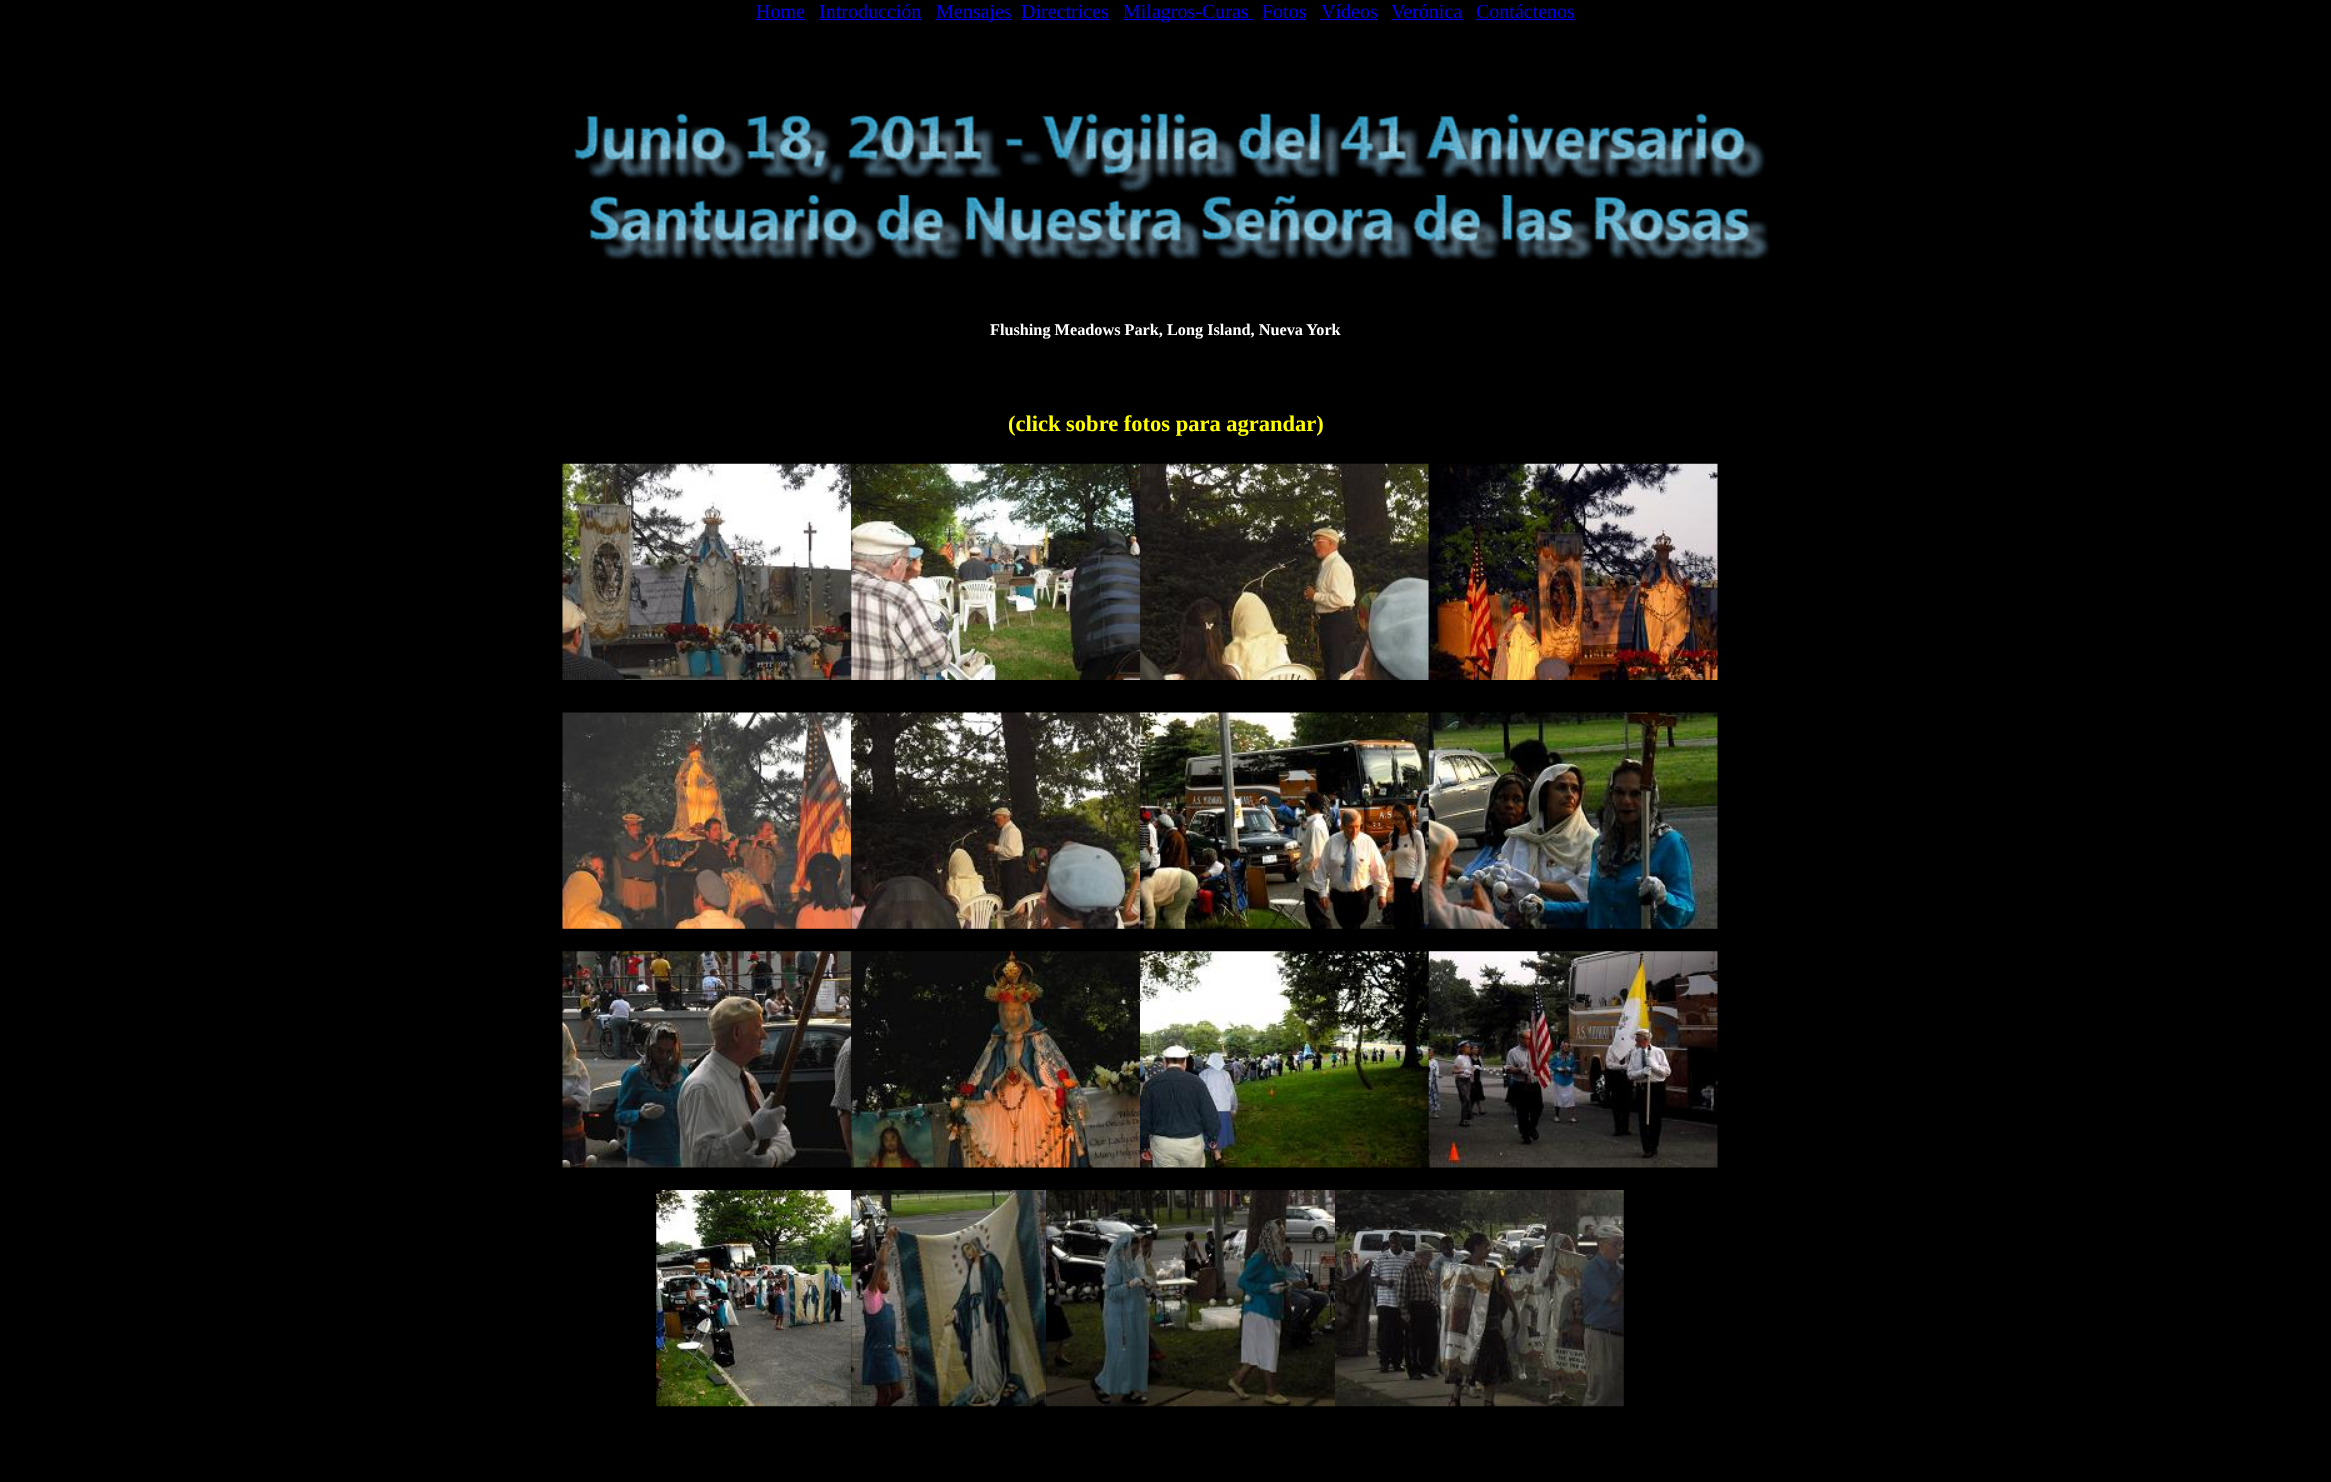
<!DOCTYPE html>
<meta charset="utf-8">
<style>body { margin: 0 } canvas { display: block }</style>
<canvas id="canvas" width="2331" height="1482"></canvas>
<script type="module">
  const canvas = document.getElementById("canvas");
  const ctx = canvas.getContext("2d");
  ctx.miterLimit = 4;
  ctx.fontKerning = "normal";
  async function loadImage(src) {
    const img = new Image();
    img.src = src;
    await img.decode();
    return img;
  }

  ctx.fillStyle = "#000000";
  ctx.fillRect(0, 0, 2331, 1482);
  ctx.font = "20px Liberation Serif";
  ctx.fillStyle = "#0000ee";
  ctx.fillText("Home", 756, 18);
  ctx.fillRect(756, 19, 49, 1);
  ctx.fillText("Introducción", 819, 18);
  ctx.fillRect(819, 19, 102, 1);
  ctx.fillRect(935, 19, 76, 1);
  ctx.fillText("Mensajes", 936, 18);
  ctx.fillText("Directrices", 1021, 18);
  ctx.fillRect(1021, 19, 88, 1);
  ctx.fillRect(1123, 19, 131, 1);
  ctx.fillText("Milagros-Curas", 1123, 18);
  ctx.fillText("Fotos", 1262, 18);
  ctx.fillRect(1263, 19, 43, 1);
  ctx.fillText("Vídeos", 1321, 18);
  ctx.fillRect(1320, 19, 58, 1);
  ctx.fillText("Verónica", 1391, 18);
  ctx.fillRect(1391, 19, 72, 1);
  ctx.fillText("Contáctenos", 1476, 18);
  ctx.fillRect(1476, 19, 99, 1);
  ctx.drawImage(await loadImage("img1.png"), 573, 113, 1197, 147);
  ctx.font = "bold 16.25px Liberation Serif";
  ctx.fillStyle = "#ffffff";
  ctx.fillText("Flushing Meadows Park, Long Island, Nueva York", 990, 335);
  ctx.font = "bold 22.5px Liberation Serif";
  ctx.fillStyle = "#ffff00";
  ctx.fillText("(click sobre fotos para agrandar)", 1008, 431);
  ctx.drawImage(await loadImage("img2.png"), 562, 463, 290, 217);
  ctx.drawImage(await loadImage("img3.png"), 851, 463, 289, 217);
  ctx.drawImage(await loadImage("img4.png"), 1140, 463, 289, 217);
  ctx.drawImage(await loadImage("img5.png"), 1428, 463, 290, 217);
  ctx.drawImage(await loadImage("img6.png"), 562, 712, 290, 217);
  ctx.drawImage(await loadImage("img7.png"), 851, 712, 289, 217);
  ctx.drawImage(await loadImage("img8.png"), 1140, 712, 289, 217);
  ctx.drawImage(await loadImage("img9.png"), 1428, 712, 290, 217);
  ctx.drawImage(await loadImage("img10.png"), 562, 951, 290, 217);
  ctx.drawImage(await loadImage("img11.png"), 851, 951, 289, 217);
  ctx.drawImage(await loadImage("img12.png"), 1140, 951, 289, 217);
  ctx.drawImage(await loadImage("img13.png"), 1428, 951, 290, 217);
  ctx.drawImage(await loadImage("img14.png"), 656, 1190, 196, 217);
  ctx.drawImage(await loadImage("img15.png"), 851, 1190, 196, 217);
  ctx.drawImage(await loadImage("img16.png"), 1046, 1190, 289, 217);
  ctx.drawImage(await loadImage("img17.png"), 1335, 1190, 289, 217);
</script>
